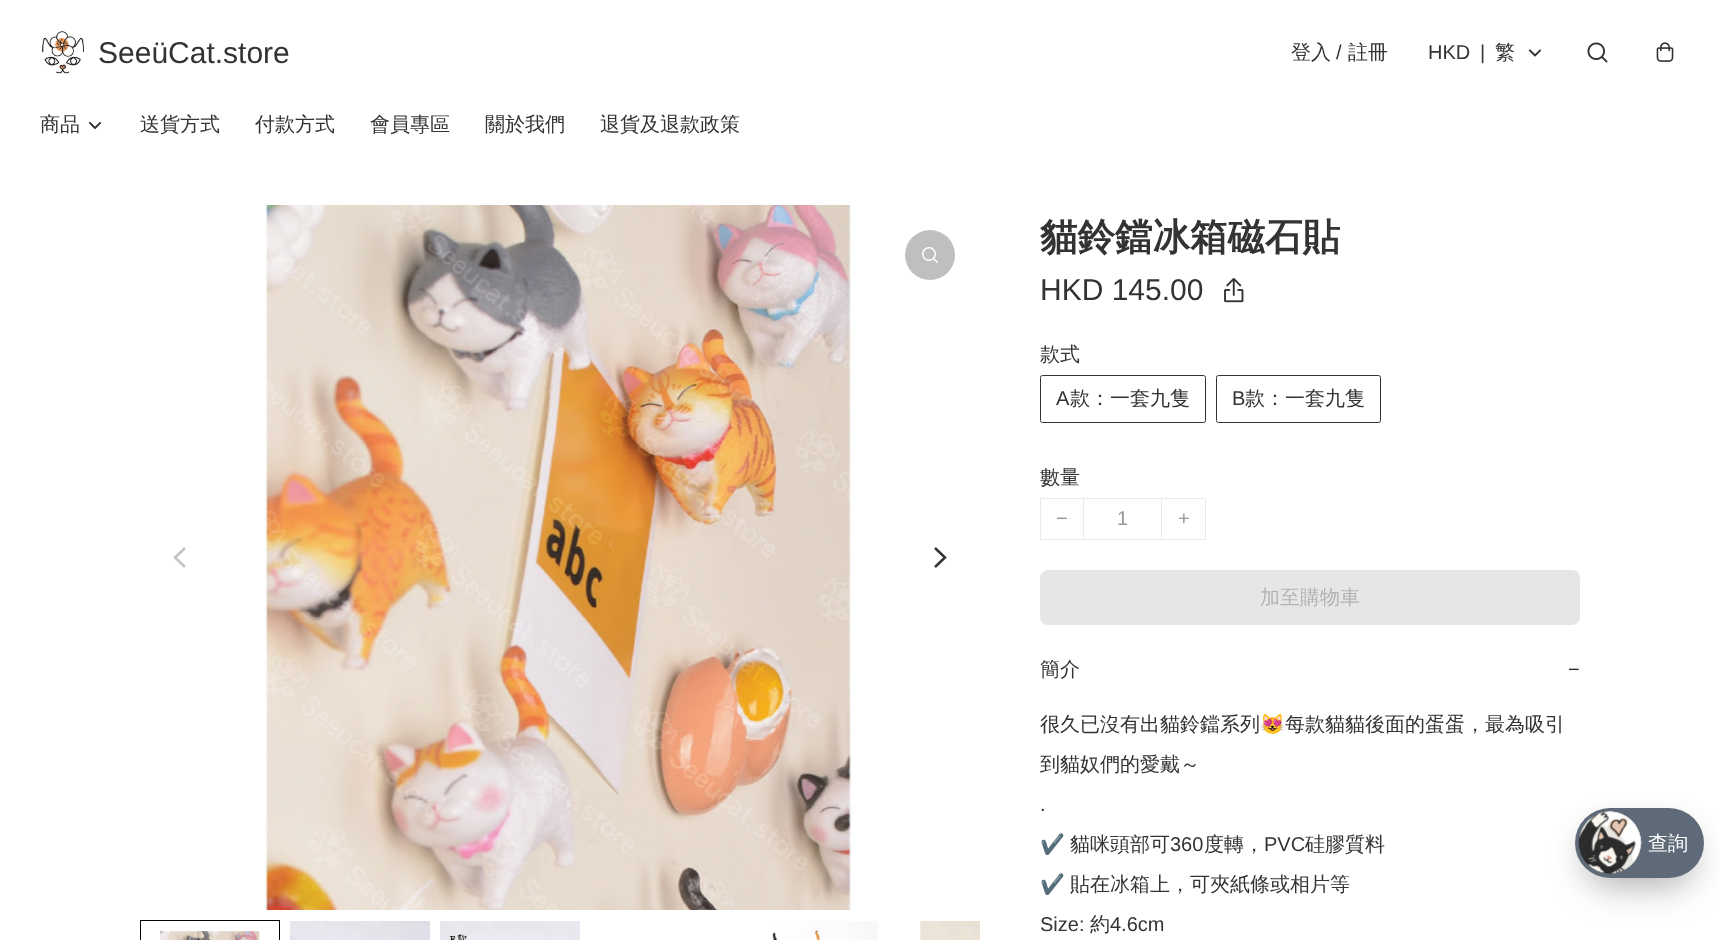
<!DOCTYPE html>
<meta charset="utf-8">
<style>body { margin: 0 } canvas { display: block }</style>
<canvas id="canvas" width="1719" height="940"></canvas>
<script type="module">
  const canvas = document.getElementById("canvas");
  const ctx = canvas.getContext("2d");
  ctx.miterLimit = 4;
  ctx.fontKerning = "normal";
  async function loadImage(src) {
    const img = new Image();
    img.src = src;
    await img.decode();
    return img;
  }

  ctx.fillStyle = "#ffffff";
  ctx.fillRect(0, 0, 1719, 940);
  ctx.drawImage(await loadImage("img1.png"), 41, 31, 44, 43);
  ctx.font = "30px Liberation Sans";
  ctx.fillStyle = "#333333";
  ctx.fillText("SeeüCat.store", 98, 63);
  ctx.font = "500 20px WenQuanYi Zen Hei";
  ctx.fillText("登入", 1291, 59);
  ctx.font = "20px Liberation Sans";
  ctx.fillText("/", 1336, 59);
  ctx.font = "500 20px WenQuanYi Zen Hei";
  ctx.fillText("註冊", 1348, 59);
  ctx.font = "20px Liberation Sans";
  ctx.fillText("HKD", 1428, 59);
  ctx.fillText("|", 1480, 59);
  ctx.font = "500 20px WenQuanYi Zen Hei";
  ctx.fillText("繁", 1495, 59);
  ctx.beginPath();
  ctx.moveTo(1530, 50.5);
  ctx.lineTo(1535, 55.5);
  ctx.lineTo(1540, 50.5);
  ctx.strokeStyle = "#333333";
  ctx.lineWidth = 1.9;
  ctx.lineCap = "square";
  ctx.lineJoin = "round";
  ctx.stroke();
  ctx.drawImage(await loadImage("img2.png"), 1587, 42, 21, 21);
  ctx.drawImage(await loadImage("img3.png"), 1656, 42, 18, 20);
  ctx.fillText("商品", 40, 131);
  ctx.beginPath();
  ctx.moveTo(90, 123);
  ctx.lineTo(95, 128);
  ctx.lineTo(100, 123);
  ctx.stroke();
  ctx.fillText("送貨方式", 140, 131);
  ctx.fillText("付款方式", 255, 131);
  ctx.fillText("會員專區", 370, 131);
  ctx.fillText("關於我們", 485, 131);
  ctx.fillText("退貨及退款政策", 600, 131);
  ctx.drawImage(await loadImage("img4.png"), 265, 205, 589, 705);
  ctx.fillStyle = "#bfbfbf";
  ctx.beginPath();
  ctx.arc(930, 255, 25, 0, Math.PI * 2);
  ctx.fill();
  ctx.drawImage(await loadImage("img5.png"), 922, 247, 16, 16);
  ctx.beginPath();
  ctx.moveTo(185, 548);
  ctx.lineTo(175, 557.5);
  ctx.lineTo(185, 567);
  ctx.strokeStyle = "#c2c2c2";
  ctx.lineWidth = 2.5;
  ctx.lineCap = "butt";
  ctx.lineJoin = "miter";
  ctx.stroke();
  ctx.beginPath();
  ctx.moveTo(935, 548);
  ctx.lineTo(945, 557.5);
  ctx.lineTo(935, 567);
  ctx.strokeStyle = "#333333";
  ctx.stroke();
  ctx.strokeStyle = "#000000";
  ctx.lineWidth = 1;
  ctx.strokeRect(140.5, 920.5, 139, 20);
  ctx.drawImage(await loadImage("img6.png"), 160, 931, 100, 9);
  ctx.drawImage(await loadImage("img7.png"), 290, 921, 140, 19);
  ctx.drawImage(await loadImage("img8.png"), 440, 921, 140, 19);
  ctx.drawImage(await loadImage("img9.png"), 772, 921, 106, 19);
  ctx.drawImage(await loadImage("img10.png"), 920, 921, 60, 19);
  ctx.font = "bold 37.5px WenQuanYi Zen Hei";
  ctx.fillStyle = "#333333";
  ctx.fillText("貓鈴鐺冰箱磁石貼", 1040, 250);
  ctx.font = "30px Liberation Sans";
  ctx.fillText("HKD 145.00", 1040, 300);
  ctx.drawImage(await loadImage("img11.png"), 1224, 278, 20, 25);
  ctx.font = "500 20px WenQuanYi Zen Hei";
  ctx.fillText("款式", 1040, 361);
  ctx.beginPath();
  ctx.roundRect(1040.5, 375.5, 165, 47, 2);
  ctx.strokeStyle = "#333333";
  ctx.stroke();
  ctx.font = "20px Liberation Sans";
  ctx.fillText("A", 1056, 405);
  ctx.font = "500 20px WenQuanYi Zen Hei";
  ctx.fillText("款：一套九隻", 1070, 405);
  ctx.beginPath();
  ctx.roundRect(1216.5, 375.5, 164, 47, 2);
  ctx.stroke();
  ctx.font = "20px Liberation Sans";
  ctx.fillText("B", 1232, 405);
  ctx.font = "500 20px WenQuanYi Zen Hei";
  ctx.fillText("款：一套九隻", 1245, 405);
  ctx.fillText("數量", 1040, 484);
  ctx.strokeStyle = "#ebebeb";
  ctx.strokeRect(1040.5, 498.5, 165, 41);
  ctx.font = "20px Liberation Sans";
  ctx.fillStyle = "#999999";
  ctx.fillText("−", 1056, 525);
  ctx.fillStyle = "#ebebeb";
  ctx.fillRect(1161, 499, 1, 40);
  ctx.fillRect(1083, 499, 1, 40);
  ctx.fillStyle = "#999999";
  ctx.fillText("1", 1117, 525);
  ctx.fillText("+", 1178, 525);
  ctx.fillStyle = "#e6e6e6";
  ctx.beginPath();
  ctx.roundRect(1041.5, 571.5, 537, 52, 6.5);
  ctx.fill();
  ctx.strokeStyle = "#e6e6e6";
  ctx.lineWidth = 3;
  ctx.stroke();
  ctx.font = "500 20px WenQuanYi Zen Hei";
  ctx.fillStyle = "#b3b3b3";
  ctx.fillText("加至購物車", 1260, 604);
  ctx.fillStyle = "#333333";
  ctx.fillText("簡介", 1040, 676);
  ctx.font = "20px Liberation Sans";
  ctx.fillText("−", 1568, 676);
  ctx.font = "500 20px WenQuanYi Zen Hei";
  ctx.fillText("很久已沒有出貓鈴鐺系列", 1040, 731);
  ctx.font = "20px Noto Color Emoji";
  ctx.fillText("😻", 1260, 731);
  ctx.font = "500 20px WenQuanYi Zen Hei";
  ctx.fillText("每款貓貓後面的蛋蛋，最為吸引", 1285, 731);
  ctx.fillText("到貓奴們的愛戴～", 1040, 771);
  ctx.font = "20px Liberation Sans";
  ctx.fillText(".", 1040, 811);
  ctx.font = "20px Noto Color Emoji";
  ctx.fillText("✔️", 1040, 851);
  ctx.font = "500 20px WenQuanYi Zen Hei";
  ctx.fillText("貓咪頭部可", 1070, 851);
  ctx.font = "20px Liberation Sans";
  ctx.fillText("360", 1170, 851);
  ctx.font = "500 20px WenQuanYi Zen Hei";
  ctx.fillText("度轉，", 1204, 851);
  ctx.font = "20px Liberation Sans";
  ctx.fillText("PVC", 1264, 851);
  ctx.font = "500 20px WenQuanYi Zen Hei";
  ctx.fillText("硅膠質料", 1305, 851);
  ctx.font = "20px Noto Color Emoji";
  ctx.fillText("✔️", 1040, 891);
  ctx.font = "500 20px WenQuanYi Zen Hei";
  ctx.fillText("貼在冰箱上，可夾紙條或相片等", 1070, 891);
  ctx.font = "20px Liberation Sans";
  ctx.fillText("Size:", 1040, 931);
  ctx.font = "500 20px WenQuanYi Zen Hei";
  ctx.fillText("約", 1090, 931);
  ctx.font = "20px Liberation Sans";
  ctx.fillText("4.6cm", 1110, 931);
  ctx.fillStyle = "rgba(0, 0, 0, 0.3)";
  ctx.filter = "blur(19px)";
  ctx.beginPath();
  ctx.roundRect(1588, 839, 103, 45, 22.5);
  ctx.fill();
  ctx.filter = "none";
  ctx.fillStyle = "rgba(0, 0, 0, 0.05)";
  ctx.filter = "blur(12.5px)";
  ctx.beginPath();
  ctx.roundRect(1575, 814, 129, 70, 35);
  ctx.fill();
  ctx.filter = "none";
  ctx.fillStyle = "#5f6a78";
  ctx.beginPath();
  ctx.roundRect(1575, 808, 129, 70, 35);
  ctx.fill();
  ctx.drawImage(await loadImage("img12.png"), 1578, 811, 64, 64);
  ctx.font = "500 20px WenQuanYi Zen Hei";
  ctx.fillStyle = "#ffffff";
  ctx.fillText("查詢", 1648, 850);
</script>
